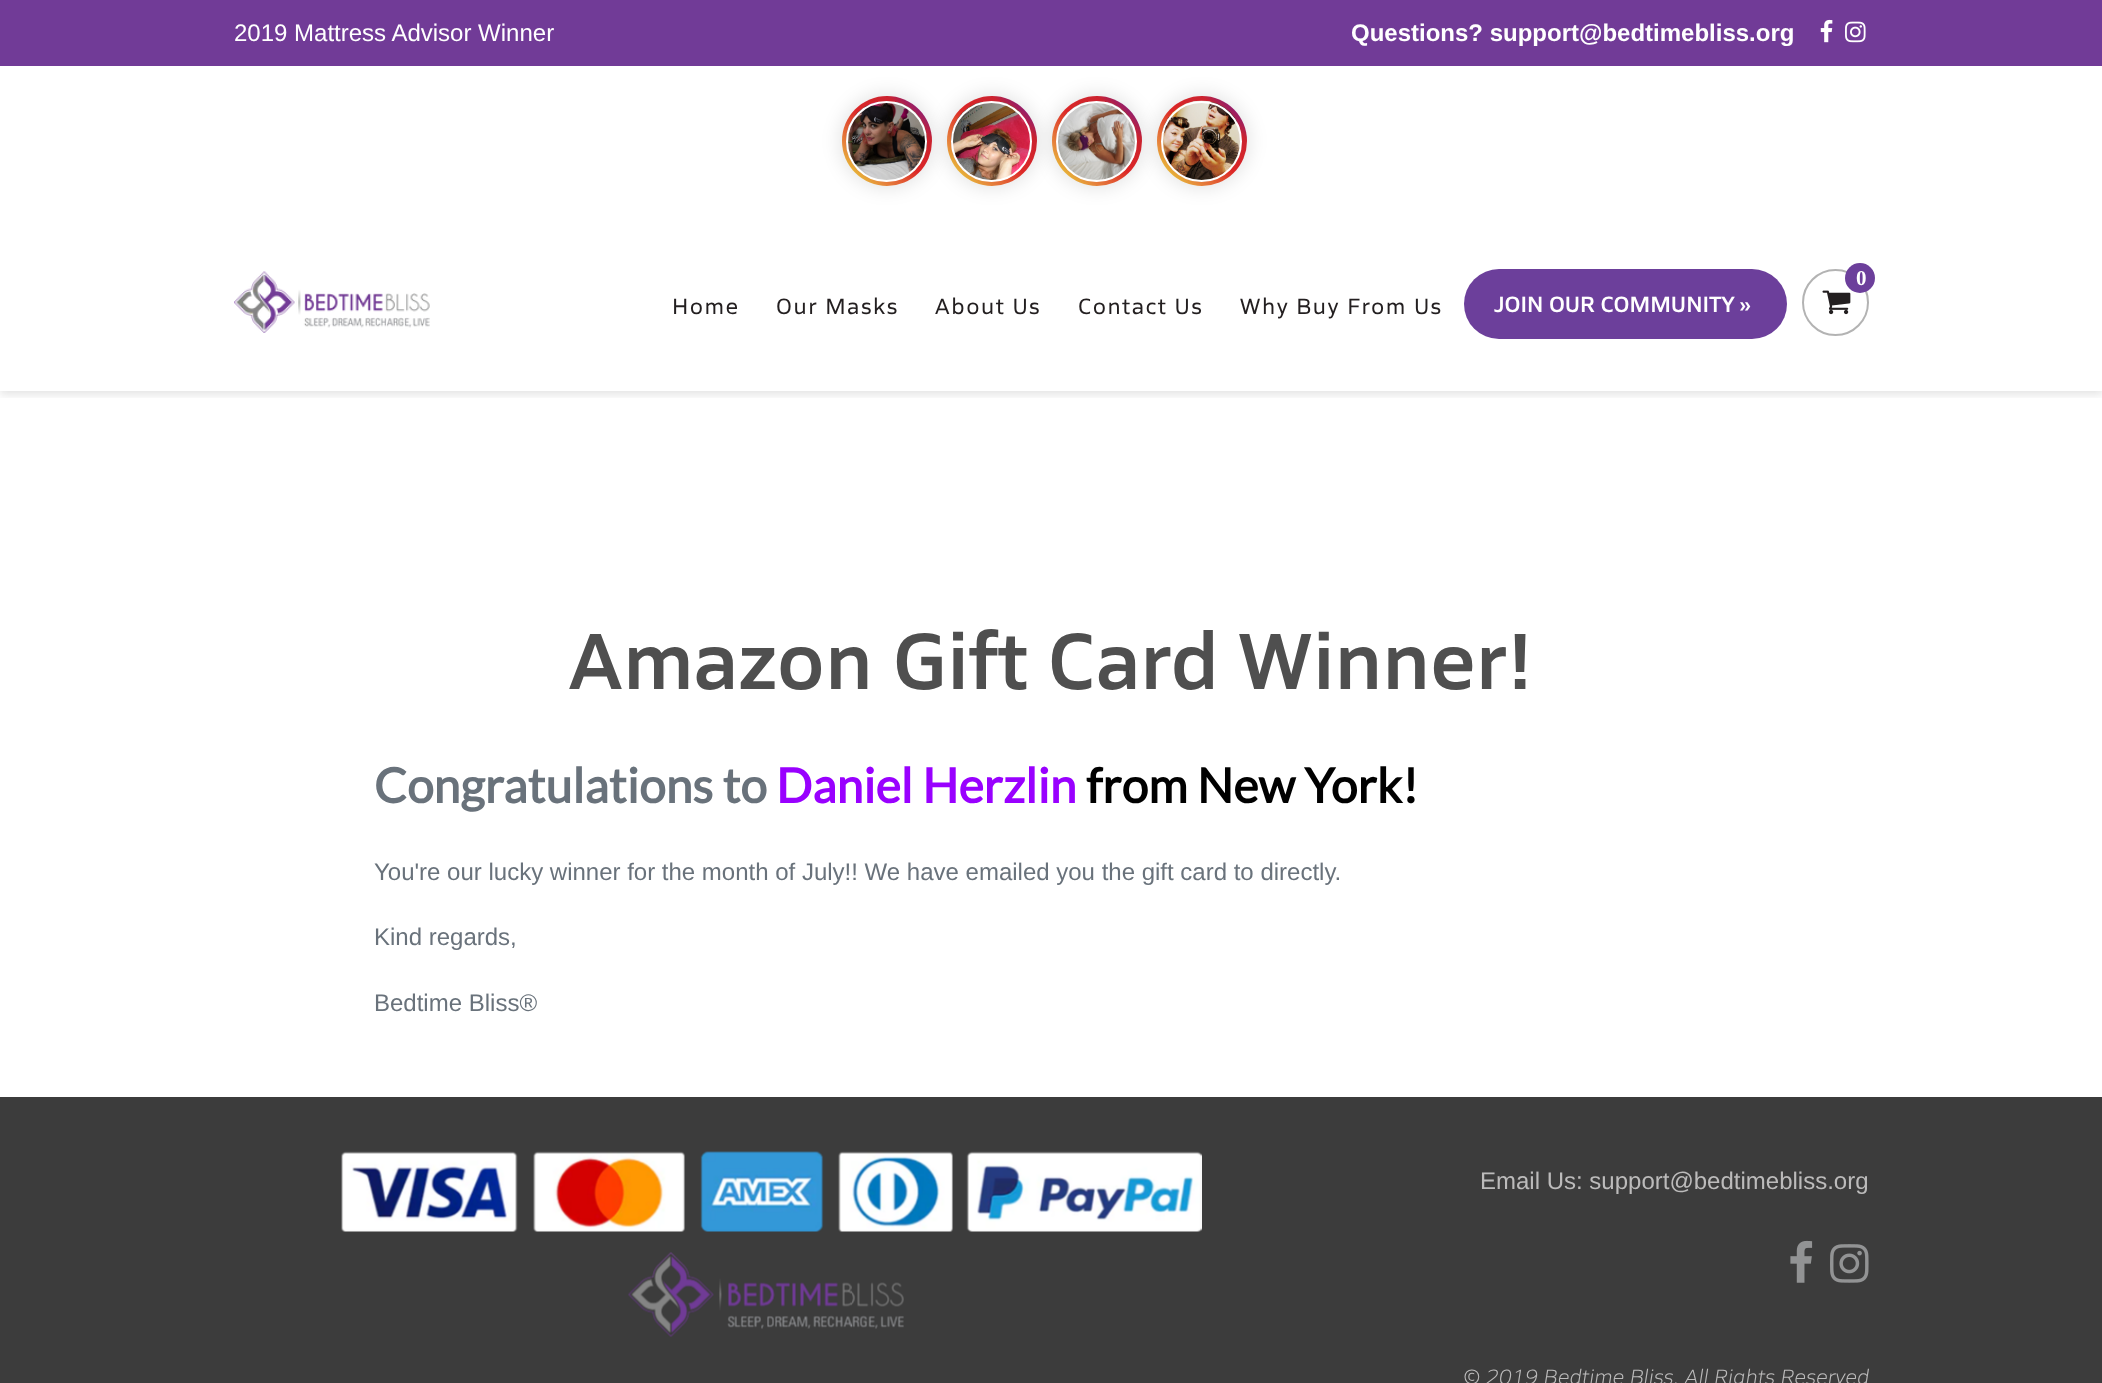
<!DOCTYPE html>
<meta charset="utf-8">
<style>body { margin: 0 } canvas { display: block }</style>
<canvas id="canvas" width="2102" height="1383"></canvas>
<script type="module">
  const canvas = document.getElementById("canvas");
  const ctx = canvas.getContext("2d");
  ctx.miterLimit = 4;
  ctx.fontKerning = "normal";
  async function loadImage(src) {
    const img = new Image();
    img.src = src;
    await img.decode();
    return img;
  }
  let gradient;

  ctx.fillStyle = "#ffffff";
  ctx.fillRect(0, 0, 2102, 1383);
  ctx.fillStyle = "rgba(0, 0, 0, 0.1)";
  ctx.filter = "blur(9px)";
  ctx.beginPath();
  ctx.roundRect(839, 93, 96, 96, 48);
  ctx.fill();
  ctx.filter = "none";
  gradient = ctx.createLinearGradient(842, 186, 932, 96);
  gradient.addColorStop(0, "#e8f033");
  gradient.addColorStop(0.25, "#e6833c");
  gradient.addColorStop(0.5, "#dc2727");
  gradient.addColorStop(0.75, "#cc232f");
  gradient.addColorStop(1, "#4818bc");
  ctx.fillStyle = gradient;
  ctx.beginPath();
  ctx.arc(887, 141, 45, 0, Math.PI * 2);
  ctx.fill();
  ctx.drawImage(await loadImage("img3.png"), 846, 102, 81, 78);
  ctx.beginPath();
  ctx.arc(886.5, 141.5, 39.5, 0, Math.PI * 2);
  ctx.strokeStyle = "#ffffff";
  ctx.lineWidth = 2;
  ctx.stroke();
  ctx.fillStyle = "rgba(0, 0, 0, 0.1)";
  ctx.filter = "blur(9px)";
  ctx.beginPath();
  ctx.roundRect(944, 93, 96, 96, 48);
  ctx.fill();
  ctx.filter = "none";
  gradient = ctx.createLinearGradient(947, 186, 1037, 96);
  gradient.addColorStop(0, "#e8f033");
  gradient.addColorStop(0.25, "#e6833c");
  gradient.addColorStop(0.5, "#dc2727");
  gradient.addColorStop(0.75, "#cc232f");
  gradient.addColorStop(1, "#4818bc");
  ctx.fillStyle = gradient;
  ctx.beginPath();
  ctx.arc(992, 141, 45, 0, Math.PI * 2);
  ctx.fill();
  ctx.drawImage(await loadImage("img4.png"), 951, 102, 81, 78);
  ctx.beginPath();
  ctx.arc(991.5, 141.5, 39.5, 0, Math.PI * 2);
  ctx.stroke();
  ctx.fillStyle = "rgba(0, 0, 0, 0.1)";
  ctx.filter = "blur(9px)";
  ctx.beginPath();
  ctx.roundRect(1049, 93, 96, 96, 48);
  ctx.fill();
  ctx.filter = "none";
  gradient = ctx.createLinearGradient(1052, 186, 1142, 96);
  gradient.addColorStop(0, "#e8f033");
  gradient.addColorStop(0.25, "#e6833c");
  gradient.addColorStop(0.5, "#dc2727");
  gradient.addColorStop(0.75, "#cc232f");
  gradient.addColorStop(1, "#4818bc");
  ctx.fillStyle = gradient;
  ctx.beginPath();
  ctx.arc(1097, 141, 45, 0, Math.PI * 2);
  ctx.fill();
  ctx.drawImage(await loadImage("img5.png"), 1057, 102, 79, 78);
  ctx.beginPath();
  ctx.arc(1096.5, 141.5, 39.5, 0, Math.PI * 2);
  ctx.stroke();
  ctx.fillStyle = "rgba(0, 0, 0, 0.1)";
  ctx.filter = "blur(9px)";
  ctx.beginPath();
  ctx.roundRect(1154, 93, 96, 96, 48);
  ctx.fill();
  ctx.filter = "none";
  ctx.fillStyle = "#713b97";
  ctx.fillRect(0, 0, 2102, 66);
  ctx.font = "24px Liberation Sans";
  ctx.fillStyle = "#ffffff";
  ctx.fillText("2019 Mattress Advisor Winner", 234, 41);
  ctx.font = "bold 24px Liberation Sans";
  ctx.fillText("Questions? support@bedtimebliss.org", 1351, 41);
  ctx.drawImage(await loadImage("img1.png"), 1820, 19, 13, 24);
  ctx.drawImage(await loadImage("img2.png"), 1845, 21, 21, 22);
  gradient = ctx.createLinearGradient(1157, 186, 1247, 96);
  gradient.addColorStop(0, "#e8f033");
  gradient.addColorStop(0.25, "#e6833c");
  gradient.addColorStop(0.5, "#dc2727");
  gradient.addColorStop(0.75, "#cc232f");
  gradient.addColorStop(1, "#4818bc");
  ctx.fillStyle = gradient;
  ctx.beginPath();
  ctx.arc(1202, 141, 45, 0, Math.PI * 2);
  ctx.fill();
  ctx.drawImage(await loadImage("img6.png"), 1162, 100, 79, 82);
  ctx.beginPath();
  ctx.arc(1201.5, 141.5, 39.5, 0, Math.PI * 2);
  ctx.stroke();
  ctx.save();
  ctx.beginPath();
  ctx.rect(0, 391, 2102, 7);
  ctx.clip();
  ctx.fillStyle = "rgba(0, 0, 0, 0.1)";
  ctx.filter = "blur(4px)";
  ctx.beginPath();
  ctx.rect(0, 221, 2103, 174);
  ctx.fill();
  ctx.filter = "none";
  ctx.restore();
  ctx.fillStyle = "#ffffff";
  ctx.fillRect(0, 390, 2102, 1);
  ctx.drawImage(await loadImage("img7.png"), 234, 271, 196, 62);
  ctx.beginPath();
  ctx.arc(1835.5, 302.5, 32.5, 0, Math.PI * 2);
  ctx.strokeStyle = "#b3b3b3";
  ctx.stroke();
  ctx.drawImage(await loadImage("img8.png"), 1822, 290, 29, 25);
  ctx.fillStyle = "#6c3f9b";
  ctx.beginPath();
  ctx.arc(1860, 278, 15, 0, Math.PI * 2);
  ctx.fill();
  ctx.letterSpacing = "1.5px";
  ctx.font = "bold 21px Liberation Serif";
  ctx.fillStyle = "#ffffff";
  ctx.fillText("0", 1856, 285);
  ctx.font = "22.5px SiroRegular";
  ctx.fillStyle = "#231f20";
  ctx.fillText("Home", 672, 314);
  ctx.fillText("Our Masks", 776, 314);
  ctx.fillText("About Us", 935, 314);
  ctx.fillText("Contact Us", 1078, 314);
  ctx.fillText("Why Buy From Us", 1240, 314);
  ctx.fillStyle = "#6c3f9b";
  ctx.beginPath();
  ctx.roundRect(1464, 269, 323, 70, 35);
  ctx.fill();
  ctx.letterSpacing = "0px";
  ctx.font = "600 22.5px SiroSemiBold";
  ctx.fillStyle = "#ffffff";
  ctx.fillText("JOIN OUR COMMUNITY »", 1494, 312);
  ctx.font = "600 81px SiroSemiBold";
  ctx.fillStyle = "#4f4f4f";
  ctx.fillText("Amazon Gift Card Winner!", 569, 689);
  ctx.font = "bold 48px Lato";
  ctx.fillStyle = "#69727b";
  ctx.fillText("Congratulations to", 374, 803);
  ctx.fillStyle = "#9900ff";
  ctx.fillText("Daniel Herzlin", 776, 803);
  ctx.fillStyle = "#000000";
  ctx.fillText("from New York!", 1086, 803);
  ctx.font = "24px Liberation Sans";
  ctx.fillStyle = "#69727b";
  ctx.fillText("You're our lucky winner for the month of July!! We have emailed you the gift card to directly.", 374, 880);
  ctx.fillText("Kind regards,", 374, 945);
  ctx.fillText("Bedtime Bliss®", 374, 1011);
  ctx.fillStyle = "#3c3c3c";
  ctx.fillRect(0, 1097, 2102, 286);
  ctx.drawImage(await loadImage("img9.png"), 341, 1151, 861, 81);
  ctx.drawImage(await loadImage("img10.png"), 628, 1252, 276, 85);
  ctx.fillStyle = "#bcbbbb";
  ctx.fillText("Email Us: support@bedtimebliss.org", 1480, 1189);
  ctx.drawImage(await loadImage("img11.png"), 1790, 1240, 23, 43);
  ctx.drawImage(await loadImage("img12.png"), 1830, 1244, 39, 39);
  ctx.font = "italic 300 21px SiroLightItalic";
  ctx.fillText("© 2019 Bedtime Bliss. All Rights Reserved", 1463, 1384);
</script>
